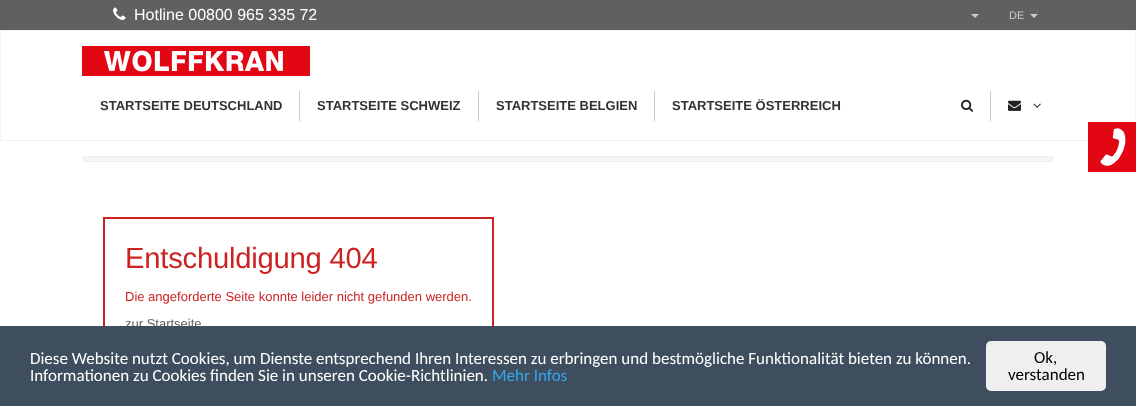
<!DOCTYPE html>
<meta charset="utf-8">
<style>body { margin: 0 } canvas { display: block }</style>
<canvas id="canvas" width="1136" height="406"></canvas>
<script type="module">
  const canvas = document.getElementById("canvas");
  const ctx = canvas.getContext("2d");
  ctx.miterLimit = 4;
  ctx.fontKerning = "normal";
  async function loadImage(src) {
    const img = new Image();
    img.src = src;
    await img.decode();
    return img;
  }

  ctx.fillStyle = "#ffffff";
  ctx.fillRect(0, 0, 1136, 406);
  ctx.fillStyle = "#606060";
  ctx.fillRect(0, 0, 1136, 30);
  ctx.drawImage(await loadImage("img1.png"), 113, 7, 13, 13);
  ctx.font = "16px Liberation Sans";
  ctx.fillStyle = "#ffffff";
  ctx.fillText("Hotline 00800 965 335 72", 134, 20);
  ctx.fillStyle = "#cccccc";
  ctx.beginPath();
  ctx.moveTo(971, 14);
  ctx.lineTo(979, 14);
  ctx.lineTo(975, 18);
  ctx.closePath();
  ctx.fill();
  ctx.font = "11px Liberation Sans";
  ctx.fillText("DE", 1009, 19);
  ctx.beginPath();
  ctx.moveTo(1030, 14);
  ctx.lineTo(1038, 14);
  ctx.lineTo(1034, 18);
  ctx.closePath();
  ctx.fill();
  ctx.strokeStyle = "#f2f2f2";
  ctx.strokeRect(0.5, 30.5, 1135, 110);
  ctx.drawImage(await loadImage("img2.png"), 82, 46, 228, 30);
  ctx.font = "bold 13px Liberation Sans";
  ctx.fillStyle = "#333333";
  ctx.fillText("STARTSEITE DEUTSCHLAND", 100, 110);
  ctx.fillStyle = "#cccccc";
  ctx.fillRect(299, 91, 1, 30);
  ctx.fillStyle = "#333333";
  ctx.fillText("STARTSEITE SCHWEIZ", 317, 110);
  ctx.fillStyle = "#cccccc";
  ctx.fillRect(478, 91, 1, 30);
  ctx.fillStyle = "#333333";
  ctx.fillText("STARTSEITE BELGIEN", 496, 110);
  ctx.fillStyle = "#cccccc";
  ctx.fillRect(654, 91, 1, 30);
  ctx.fillStyle = "#333333";
  ctx.fillText("STARTSEITE ÖSTERREICH", 672, 110);
  ctx.drawImage(await loadImage("img3.png"), 961, 99, 12, 13);
  ctx.fillStyle = "#cccccc";
  ctx.fillRect(990, 91, 1, 30);
  ctx.drawImage(await loadImage("img4.png"), 1008, 100, 13, 11);
  ctx.drawImage(await loadImage("img5.png"), 1033, 103, 8, 5);
  ctx.fillStyle = "#e30613";
  ctx.fillRect(1088, 122, 48, 50);
  ctx.drawImage(await loadImage("img6.png"), 1100, 128, 26, 38);
  ctx.fillStyle = "#f5f5f5";
  ctx.beginPath();
  ctx.rect(83.5, 156.5, 969, 5);
  ctx.fill();
  ctx.strokeStyle = "#eeeeee";
  ctx.stroke();
  ctx.strokeStyle = "#cc2222";
  ctx.lineWidth = 2;
  ctx.strokeRect(104, 218, 389, 147);
  ctx.letterSpacing = "-0.25px";
  ctx.font = "29.25px Liberation Sans";
  ctx.fillStyle = "#cc2222";
  ctx.fillText("Entschuldigung 404", 125, 268);
  ctx.letterSpacing = "0px";
  ctx.font = "13px Liberation Sans";
  ctx.fillText("Die angeforderte Seite konnte leider nicht gefunden werden.", 125, 301);
  ctx.fillStyle = "#606060";
  ctx.fillText("zur Startseite", 125, 328);
  ctx.fillStyle = "#3e4e5f";
  ctx.fillRect(0, 326, 1136, 80);
  ctx.font = "17px Carlito";
  ctx.fillStyle = "#ffffff";
  ctx.fillText("Diese Website nutzt Cookies, um Dienste entsprechend Ihren Interessen zu erbringen und bestmögliche Funktionalität bieten zu können.", 30, 364);
  ctx.fillText("Informationen zu Cookies finden Sie in unseren Cookie-Richtlinien.", 30, 381);
  ctx.fillStyle = "#31a8f0";
  ctx.fillText("Mehr Infos", 492, 381);
  ctx.fillStyle = "#efefef";
  ctx.beginPath();
  ctx.roundRect(986, 341, 120, 50, 5);
  ctx.fill();
  ctx.fillStyle = "#000000";
  ctx.fillText("Ok,", 1034, 363);
  ctx.fillText("verstanden", 1008, 380);
</script>
